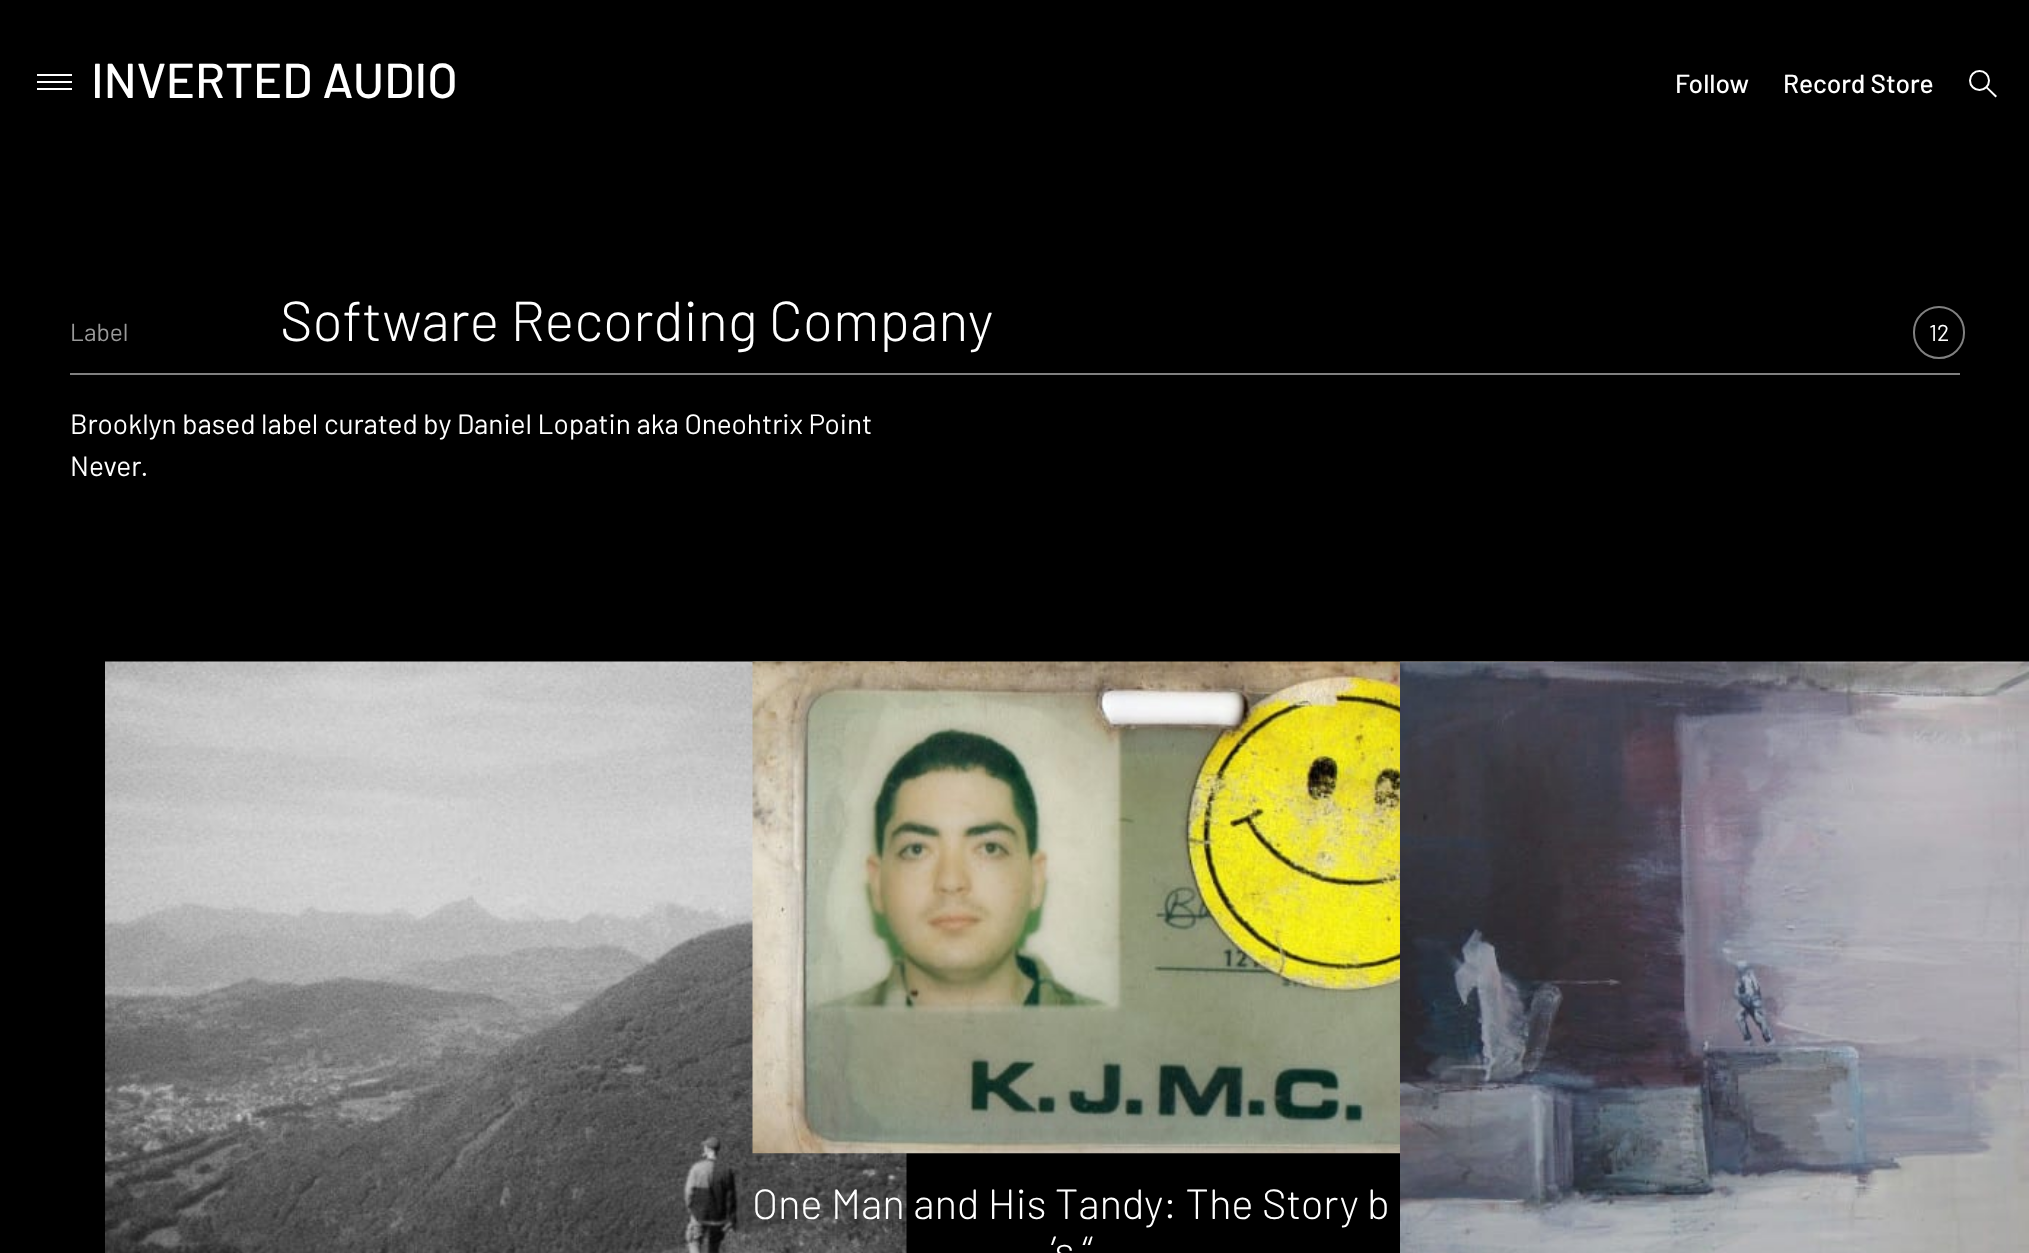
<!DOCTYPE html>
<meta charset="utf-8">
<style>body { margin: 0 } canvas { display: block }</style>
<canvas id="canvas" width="2029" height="1253"></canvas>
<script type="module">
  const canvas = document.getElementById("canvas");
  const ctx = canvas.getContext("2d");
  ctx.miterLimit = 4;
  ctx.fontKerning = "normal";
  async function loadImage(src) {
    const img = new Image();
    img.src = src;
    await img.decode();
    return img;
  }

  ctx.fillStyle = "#000000";
  ctx.fillRect(0, 0, 2029, 1253);
  ctx.fillStyle = "#ffffff";
  ctx.fillRect(37, 74, 35, 2);
  ctx.fillRect(37, 81, 35, 2);
  ctx.fillRect(37, 88, 35, 2);
  ctx.font = "500 49px Barlow";
  ctx.fillText("INVERTED AUDIO", 91, 98);
  ctx.font = "500 26.25px Barlow";
  ctx.fillText("Follow", 1675, 93);
  ctx.fillText("Record Store", 1783, 93);
  ctx.beginPath();
  ctx.arc(1979.5, 80.5, 9.5, 0, Math.PI * 2);
  ctx.strokeStyle = "#ffffff";
  ctx.lineWidth = 2;
  ctx.stroke();
  ctx.beginPath();
  ctx.moveTo(1987, 86.5);
  ctx.lineTo(1997, 96);
  ctx.lineTo(1995.5, 97.5);
  ctx.lineTo(1985.5, 87.5);
  ctx.closePath();
  ctx.fill();
  ctx.fillStyle = "#808080";
  ctx.fillRect(70, 373, 1890, 2);
  ctx.font = "24.5px Barlow";
  ctx.fillStyle = "#999999";
  ctx.fillText("Label", 70, 341);
  ctx.font = "300 56px Barlow";
  ctx.fillStyle = "#ffffff";
  ctx.fillText("Software Recording Company", 280, 341);
  ctx.beginPath();
  ctx.roundRect(1914, 307, 50, 51, 25);
  ctx.strokeStyle = "#808080";
  ctx.stroke();
  ctx.font = "23px Barlow";
  ctx.fillText("12", 1929, 341);
  ctx.font = "28px Barlow";
  ctx.fillText("Brooklyn based label curated by Daniel Lopatin aka Oneohtrix Point", 70, 434);
  ctx.fillText("Never.", 70, 476);
  ctx.drawImage(await loadImage("img1.png"), 105, 661, 802, 592);
  ctx.drawImage(await loadImage("img2.png"), 752, 661, 802, 493);
  ctx.font = "300 42px Barlow";
  ctx.fillText("One Man and His Tandy: The Story b", 752, 1219);
  ctx.fillText("’s “", 1051, 1266);
  ctx.drawImage(await loadImage("img3.png"), 1400, 661, 629, 592);
</script>
